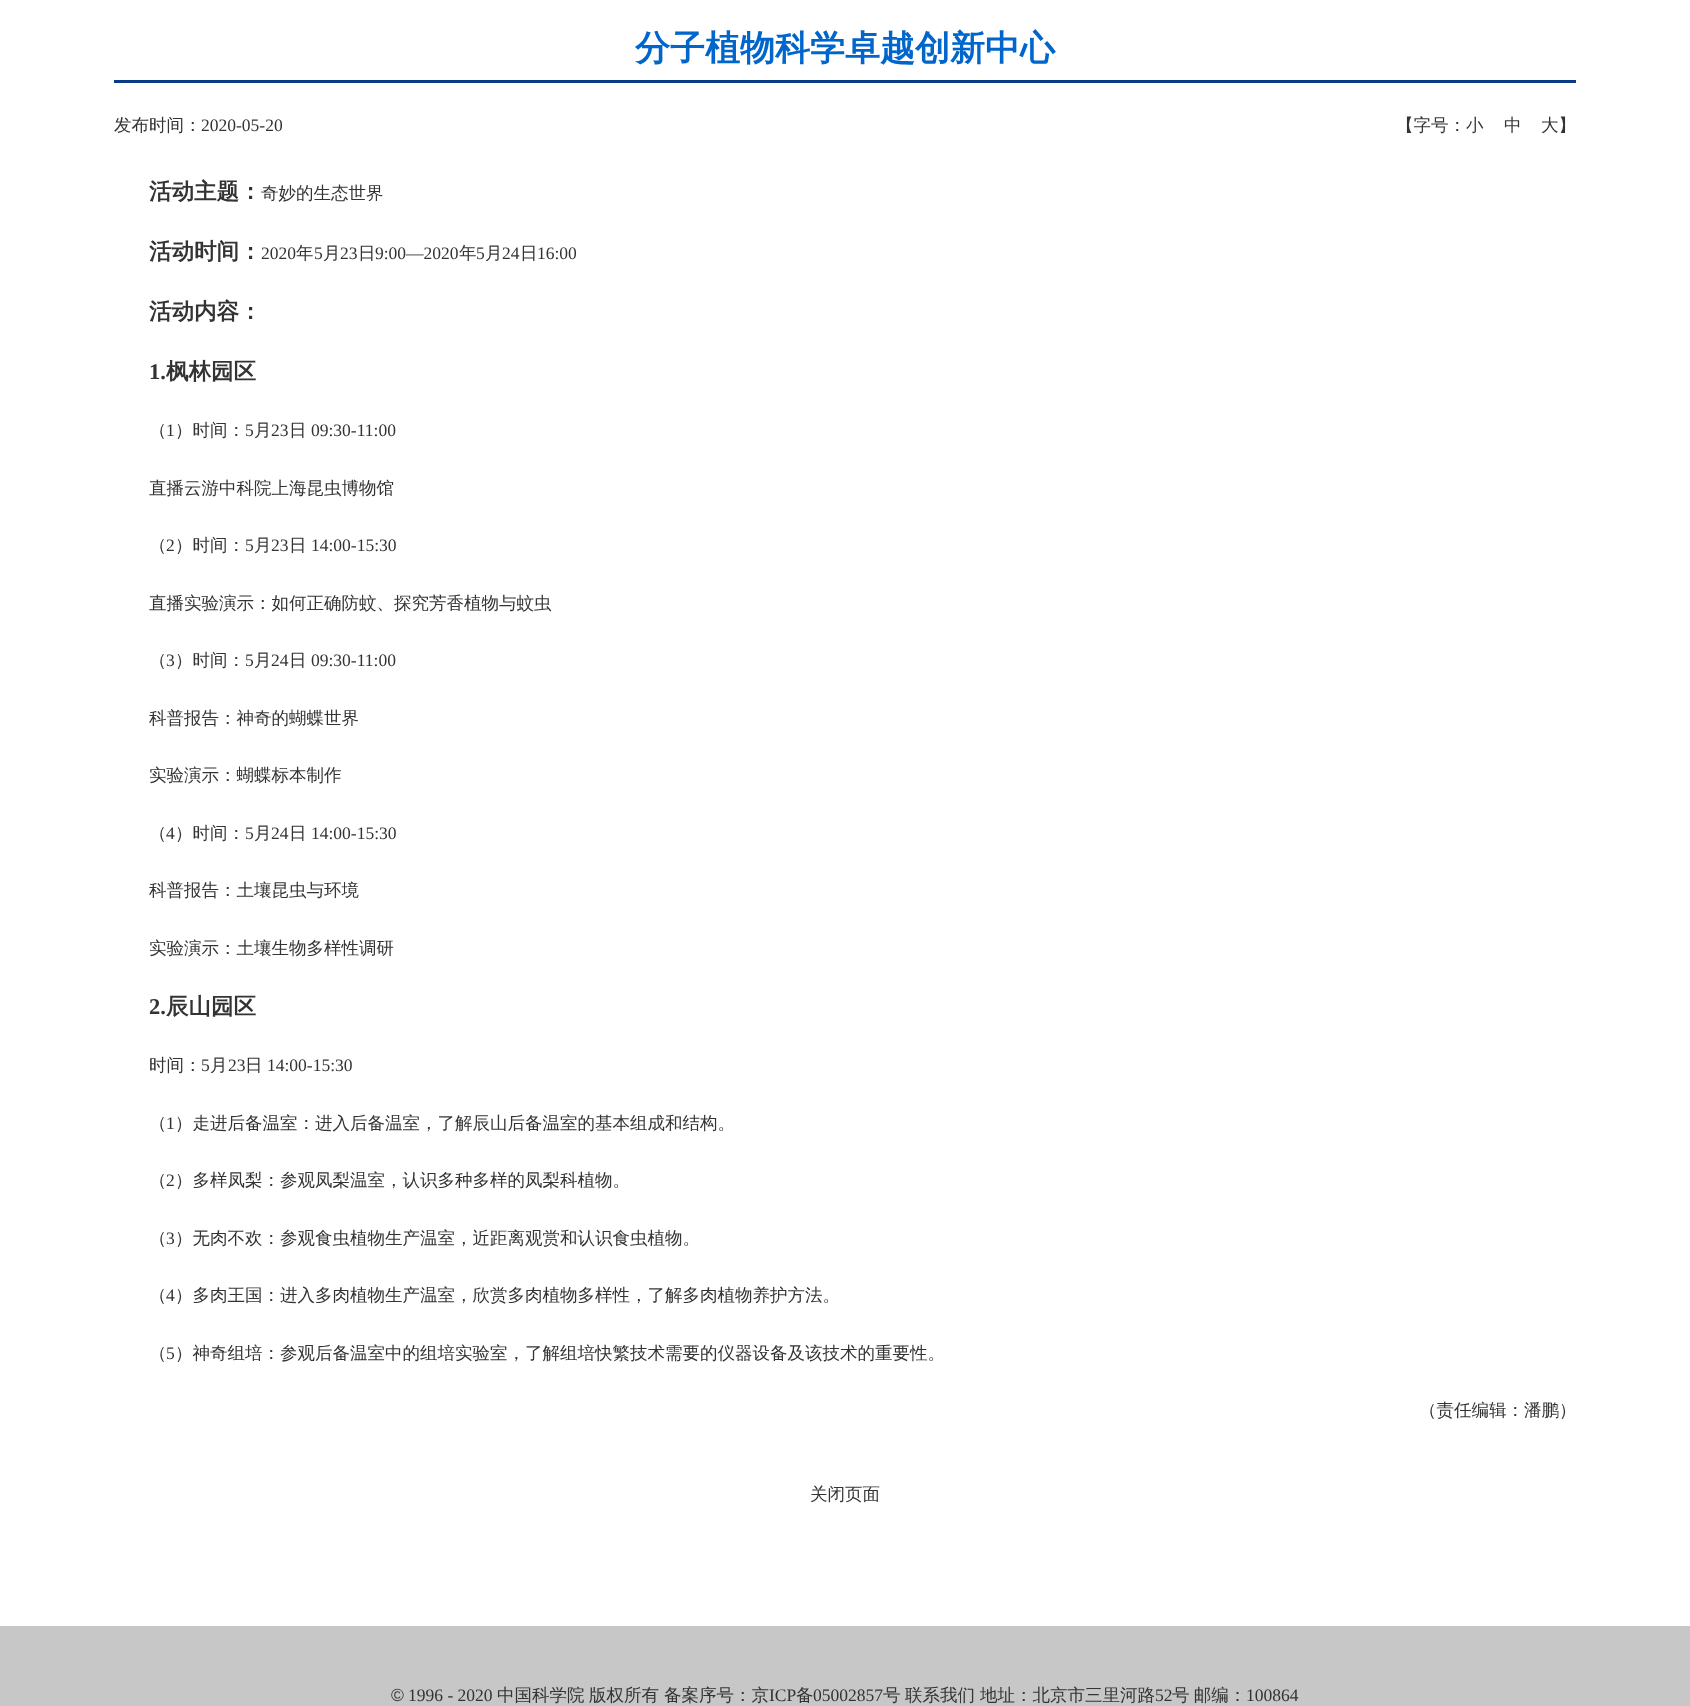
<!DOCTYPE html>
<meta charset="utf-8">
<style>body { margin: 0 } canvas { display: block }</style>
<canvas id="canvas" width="1690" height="1706"></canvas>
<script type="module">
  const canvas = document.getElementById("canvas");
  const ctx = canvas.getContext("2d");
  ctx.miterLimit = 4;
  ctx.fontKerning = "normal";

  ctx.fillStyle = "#ffffff";
  ctx.fillRect(0, 0, 1690, 1706);
  ctx.font = "bold 35px WenQuanYi Zen Hei";
  ctx.fillStyle = "#0066cc";
  ctx.fillText("分子植物科学卓越创新中心", 635, 60);
  ctx.fillStyle = "#0a3c85";
  ctx.fillRect(114, 80, 1462, 3);
  ctx.font = "500 17.5px WenQuanYi Zen Hei";
  ctx.fillStyle = "#333333";
  ctx.fillText("发布时间：", 114, 131);
  ctx.font = "17.5px Liberation Serif";
  ctx.fillText("2020-05-20", 201, 131);
  ctx.font = "500 17.5px WenQuanYi Zen Hei";
  ctx.fillText("【字号：小", 1396, 131);
  ctx.fillText("中", 1504, 131);
  ctx.fillText("大】", 1541, 131);
  ctx.font = "bold 22.5px WenQuanYi Zen Hei";
  ctx.fillText("活动主题：", 149, 199);
  ctx.font = "500 17.5px WenQuanYi Zen Hei";
  ctx.fillText("奇妙的生态世界", 261, 199);
  ctx.font = "bold 22.5px WenQuanYi Zen Hei";
  ctx.fillText("活动时间：", 149, 259);
  ctx.font = "17.5px Liberation Serif";
  ctx.fillText("2020", 261, 259);
  ctx.font = "500 17.5px WenQuanYi Zen Hei";
  ctx.fillText("年", 296, 259);
  ctx.font = "17.5px Liberation Serif";
  ctx.fillText("5", 314, 259);
  ctx.font = "500 17.5px WenQuanYi Zen Hei";
  ctx.fillText("月", 323, 259);
  ctx.font = "17.5px Liberation Serif";
  ctx.fillText("23", 340, 259);
  ctx.font = "500 17.5px WenQuanYi Zen Hei";
  ctx.fillText("日", 358, 259);
  ctx.font = "17.5px Liberation Serif";
  ctx.fillText("9:00—2020", 375, 259);
  ctx.font = "500 17.5px WenQuanYi Zen Hei";
  ctx.fillText("年", 459, 259);
  ctx.font = "17.5px Liberation Serif";
  ctx.fillText("5", 476, 259);
  ctx.font = "500 17.5px WenQuanYi Zen Hei";
  ctx.fillText("月", 485, 259);
  ctx.font = "17.5px Liberation Serif";
  ctx.fillText("24", 502, 259);
  ctx.font = "500 17.5px WenQuanYi Zen Hei";
  ctx.fillText("日", 520, 259);
  ctx.font = "17.5px Liberation Serif";
  ctx.fillText("16:00", 537, 259);
  ctx.font = "bold 22.5px WenQuanYi Zen Hei";
  ctx.fillText("活动内容：", 149, 319);
  ctx.font = "bold 22.5px Liberation Serif";
  ctx.fillText("1.", 149, 379);
  ctx.font = "bold 22.5px WenQuanYi Zen Hei";
  ctx.fillText("枫林园区", 166, 379);
  ctx.font = "500 17.5px WenQuanYi Zen Hei";
  ctx.fillText("（", 149, 436);
  ctx.font = "17.5px Liberation Serif";
  ctx.fillText("1", 166, 436);
  ctx.font = "500 17.5px WenQuanYi Zen Hei";
  ctx.fillText("）时间：", 175, 436);
  ctx.font = "17.5px Liberation Serif";
  ctx.fillText("5", 245, 436);
  ctx.font = "500 17.5px WenQuanYi Zen Hei";
  ctx.fillText("月", 254, 436);
  ctx.font = "17.5px Liberation Serif";
  ctx.fillText("23", 271, 436);
  ctx.font = "500 17.5px WenQuanYi Zen Hei";
  ctx.fillText("日", 289, 436);
  ctx.font = "17.5px Liberation Serif";
  ctx.fillText("09:30-11:00", 311, 436);
  ctx.font = "500 17.5px WenQuanYi Zen Hei";
  ctx.fillText("直播云游中科院上海昆虫博物馆", 149, 494);
  ctx.fillText("（", 149, 551);
  ctx.font = "17.5px Liberation Serif";
  ctx.fillText("2", 166, 551);
  ctx.font = "500 17.5px WenQuanYi Zen Hei";
  ctx.fillText("）时间：", 175, 551);
  ctx.font = "17.5px Liberation Serif";
  ctx.fillText("5", 245, 551);
  ctx.font = "500 17.5px WenQuanYi Zen Hei";
  ctx.fillText("月", 254, 551);
  ctx.font = "17.5px Liberation Serif";
  ctx.fillText("23", 271, 551);
  ctx.font = "500 17.5px WenQuanYi Zen Hei";
  ctx.fillText("日", 289, 551);
  ctx.font = "17.5px Liberation Serif";
  ctx.fillText("14:00-15:30", 311, 551);
  ctx.font = "500 17.5px WenQuanYi Zen Hei";
  ctx.fillText("直播实验演示：如何正确防蚊、探究芳香植物与蚊虫", 149, 609);
  ctx.fillText("（", 149, 666);
  ctx.font = "17.5px Liberation Serif";
  ctx.fillText("3", 166, 666);
  ctx.font = "500 17.5px WenQuanYi Zen Hei";
  ctx.fillText("）时间：", 175, 666);
  ctx.font = "17.5px Liberation Serif";
  ctx.fillText("5", 245, 666);
  ctx.font = "500 17.5px WenQuanYi Zen Hei";
  ctx.fillText("月", 254, 666);
  ctx.font = "17.5px Liberation Serif";
  ctx.fillText("24", 271, 666);
  ctx.font = "500 17.5px WenQuanYi Zen Hei";
  ctx.fillText("日", 289, 666);
  ctx.font = "17.5px Liberation Serif";
  ctx.fillText("09:30-11:00", 311, 666);
  ctx.font = "500 17.5px WenQuanYi Zen Hei";
  ctx.fillText("科普报告：神奇的蝴蝶世界", 149, 724);
  ctx.fillText("实验演示：蝴蝶标本制作", 149, 781);
  ctx.fillText("（", 149, 839);
  ctx.font = "17.5px Liberation Serif";
  ctx.fillText("4", 166, 839);
  ctx.font = "500 17.5px WenQuanYi Zen Hei";
  ctx.fillText("）时间：", 175, 839);
  ctx.font = "17.5px Liberation Serif";
  ctx.fillText("5", 245, 839);
  ctx.font = "500 17.5px WenQuanYi Zen Hei";
  ctx.fillText("月", 254, 839);
  ctx.font = "17.5px Liberation Serif";
  ctx.fillText("24", 271, 839);
  ctx.font = "500 17.5px WenQuanYi Zen Hei";
  ctx.fillText("日", 289, 839);
  ctx.font = "17.5px Liberation Serif";
  ctx.fillText("14:00-15:30", 311, 839);
  ctx.font = "500 17.5px WenQuanYi Zen Hei";
  ctx.fillText("科普报告：土壤昆虫与环境", 149, 896);
  ctx.fillText("实验演示：土壤生物多样性调研", 149, 954);
  ctx.font = "bold 22.5px Liberation Serif";
  ctx.fillText("2.", 149, 1014);
  ctx.font = "bold 22.5px WenQuanYi Zen Hei";
  ctx.fillText("辰山园区", 166, 1014);
  ctx.font = "500 17.5px WenQuanYi Zen Hei";
  ctx.fillText("时间：", 149, 1071);
  ctx.font = "17.5px Liberation Serif";
  ctx.fillText("5", 201, 1071);
  ctx.font = "500 17.5px WenQuanYi Zen Hei";
  ctx.fillText("月", 210, 1071);
  ctx.font = "17.5px Liberation Serif";
  ctx.fillText("23", 228, 1071);
  ctx.font = "500 17.5px WenQuanYi Zen Hei";
  ctx.fillText("日", 245, 1071);
  ctx.font = "17.5px Liberation Serif";
  ctx.fillText("14:00-15:30", 267, 1071);
  ctx.font = "500 17.5px WenQuanYi Zen Hei";
  ctx.fillText("（", 149, 1129);
  ctx.font = "17.5px Liberation Serif";
  ctx.fillText("1", 166, 1129);
  ctx.font = "500 17.5px WenQuanYi Zen Hei";
  ctx.fillText("）走进后备温室：进入后备温室，了解辰山后备温室的基本组成和结构。", 175, 1129);
  ctx.fillText("（", 149, 1186);
  ctx.font = "17.5px Liberation Serif";
  ctx.fillText("2", 166, 1186);
  ctx.font = "500 17.5px WenQuanYi Zen Hei";
  ctx.fillText("）多样凤梨：参观凤梨温室，认识多种多样的凤梨科植物。", 175, 1186);
  ctx.fillText("（", 149, 1244);
  ctx.font = "17.5px Liberation Serif";
  ctx.fillText("3", 166, 1244);
  ctx.font = "500 17.5px WenQuanYi Zen Hei";
  ctx.fillText("）无肉不欢：参观食虫植物生产温室，近距离观赏和认识食虫植物。", 175, 1244);
  ctx.fillText("（", 149, 1301);
  ctx.font = "17.5px Liberation Serif";
  ctx.fillText("4", 166, 1301);
  ctx.font = "500 17.5px WenQuanYi Zen Hei";
  ctx.fillText("）多肉王国：进入多肉植物生产温室，欣赏多肉植物多样性，了解多肉植物养护方法。", 175, 1301);
  ctx.fillText("（", 149, 1359);
  ctx.font = "17.5px Liberation Serif";
  ctx.fillText("5", 166, 1359);
  ctx.font = "500 17.5px WenQuanYi Zen Hei";
  ctx.fillText("）神奇组培：参观后备温室中的组培实验室，了解组培快繁技术需要的仪器设备及该技术的重要性。", 175, 1359);
  ctx.fillText("（责任编辑：潘鹏）", 1419, 1416);
  ctx.fillText("关闭页面", 810, 1500);
  ctx.fillStyle = "#c7c7c7";
  ctx.fillRect(0, 1626, 1690, 80);
  ctx.font = "17.5px Liberation Sans";
  ctx.fillStyle = "#333333";
  ctx.fillText("©", 391, 1701);
  ctx.font = "17.5px Liberation Serif";
  ctx.fillText("1996 - 2020", 408, 1701);
  ctx.font = "500 17.5px WenQuanYi Zen Hei";
  ctx.fillText("中国科学院", 497, 1701);
  ctx.fillText("版权所有", 589, 1701);
  ctx.fillText("备案序号：京", 664, 1701);
  ctx.font = "17.5px Liberation Serif";
  ctx.fillText("ICP", 769, 1701);
  ctx.font = "500 17.5px WenQuanYi Zen Hei";
  ctx.fillText("备", 796, 1701);
  ctx.font = "17.5px Liberation Serif";
  ctx.fillText("05002857", 813, 1701);
  ctx.font = "500 17.5px WenQuanYi Zen Hei";
  ctx.fillText("号", 883, 1701);
  ctx.fillText("联系我们", 905, 1701);
  ctx.fillText("地址：北京市三里河路", 980, 1701);
  ctx.font = "17.5px Liberation Serif";
  ctx.fillText("52", 1155, 1701);
  ctx.wordSpacing = "-1px";
  ctx.font = "500 17.5px WenQuanYi Zen Hei";
  ctx.fillText("号 邮编：", 1172, 1701);
  ctx.wordSpacing = "0px";
  ctx.font = "17.5px Liberation Serif";
  ctx.fillText("100864", 1246, 1701);
</script>
